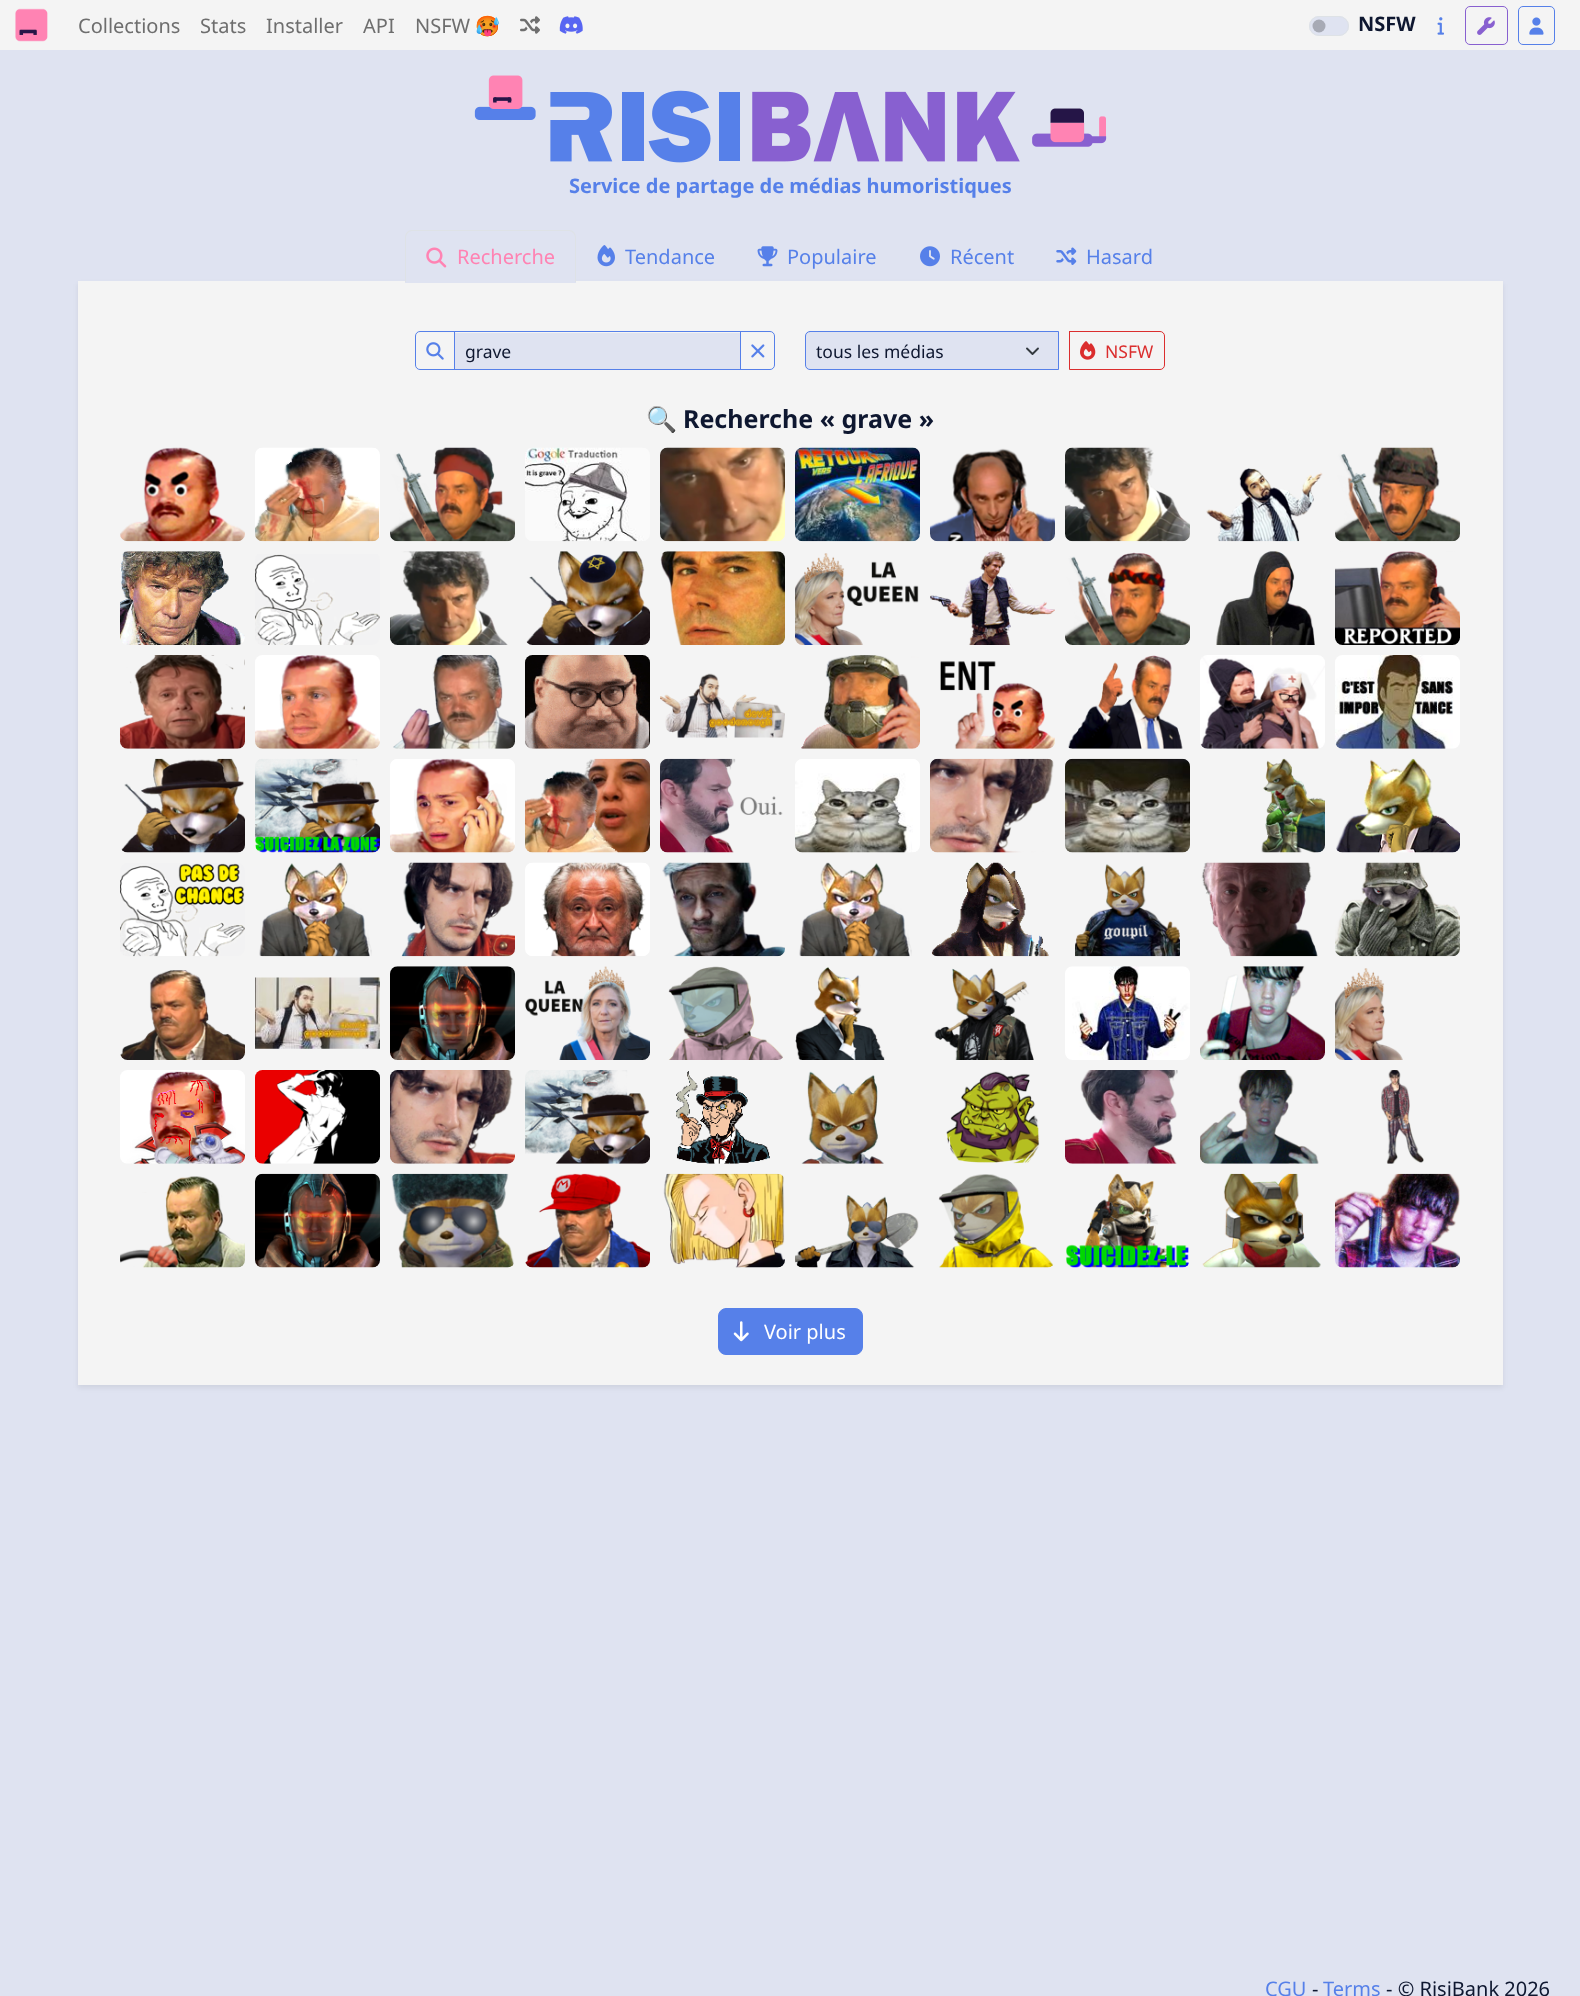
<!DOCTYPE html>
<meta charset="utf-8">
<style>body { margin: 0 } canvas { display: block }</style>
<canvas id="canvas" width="1580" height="1996"></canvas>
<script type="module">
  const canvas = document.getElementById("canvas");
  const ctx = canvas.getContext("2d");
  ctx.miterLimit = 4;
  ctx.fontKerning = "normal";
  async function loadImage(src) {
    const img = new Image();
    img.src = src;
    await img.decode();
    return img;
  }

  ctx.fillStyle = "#dfe3f1";
  ctx.fillRect(0, 0, 1580, 1996);
  ctx.fillStyle = "#f4f4f4";
  ctx.fillRect(0, 0, 1580, 50);
  ctx.drawImage(await loadImage("img1.png"), 15, 8, 33, 34);
  ctx.font = "20px Noto Sans";
  ctx.fillStyle = "#6e6e6e";
  ctx.fillText("Collections", 78, 33);
  ctx.fillText("Stats", 200, 33);
  ctx.fillText("Installer", 266, 33);
  ctx.fillText("API", 363, 33);
  ctx.fillText("NSFW", 415, 33);
  ctx.font = "20px Noto Color Emoji";
  ctx.fillText("🥵", 475, 33);
  ctx.drawImage(await loadImage("img2.png"), 520, 16, 20, 18);
  ctx.drawImage(await loadImage("img3.png"), 559, 16, 24, 18);
  ctx.fillStyle = "#dfe3f1";
  ctx.beginPath();
  ctx.roundRect(1309, 16, 40, 20, 10);
  ctx.fill();
  ctx.fillStyle = "#a7aab5";
  ctx.beginPath();
  ctx.arc(1319, 26, 6.5, 0, Math.PI * 2);
  ctx.fill();
  ctx.beginPath();
  ctx.roundRect(1309.5, 16.5, 39, 19, 9.5);
  ctx.strokeStyle = "#dee2e6";
  ctx.stroke();
  ctx.font = "bold 20px Noto Sans";
  ctx.fillStyle = "#0e1730";
  ctx.fillText("NSFW", 1358, 31);
  ctx.drawImage(await loadImage("img4.png"), 1437, 17, 7, 18);
  ctx.beginPath();
  ctx.roundRect(1465.5, 6.5, 42, 38, 4.5);
  ctx.strokeStyle = "#8860d0";
  ctx.stroke();
  ctx.drawImage(await loadImage("img5.png"), 1477, 17, 18, 18);
  ctx.beginPath();
  ctx.roundRect(1518.5, 6.5, 36, 38, 4.5);
  ctx.strokeStyle = "#5680e9";
  ctx.stroke();
  ctx.drawImage(await loadImage("img6.png"), 1529, 17, 15, 18);
  ctx.drawImage(await loadImage("img7.png"), 474, 75, 633, 88);
  ctx.fillStyle = "#5680e9";
  ctx.fillText("Service de partage de médias humoristiques", 569, 193);
  ctx.fillStyle = "rgba(0, 0, 0, 0.07)";
  ctx.filter = "blur(2.5px)";
  ctx.beginPath();
  ctx.rect(78, 284, 1425, 1104);
  ctx.fill();
  ctx.filter = "none";
  ctx.fillStyle = "#f4f4f4";
  ctx.fillRect(78, 281, 1425, 1104);
  ctx.fillStyle = "#dfe3f1";
  ctx.beginPath();
  ctx.roundRect(405, 230, 171, 53, [8, 8, 0, 0]);
  ctx.fill();
  ctx.fillStyle = "#dee2e6";
  ctx.beginPath();
  ctx.moveTo(412, 230);
  ctx.lineTo(569, 230);
  ctx.bezierCurveTo(573, 230, 576, 233, 576, 238);
  ctx.lineTo(576, 282);
  ctx.lineTo(405, 282);
  ctx.lineTo(405, 238);
  ctx.bezierCurveTo(405, 233, 408, 230, 412, 230);
  ctx.closePath();
  ctx.moveTo(412, 231);
  ctx.lineTo(569, 231);
  ctx.bezierCurveTo(572, 231, 575, 234, 575, 238);
  ctx.lineTo(575, 282);
  ctx.lineTo(406, 282);
  ctx.lineTo(406, 238);
  ctx.bezierCurveTo(406, 234, 409, 231, 412, 231);
  ctx.closePath();
  ctx.fill("evenodd");
  ctx.drawImage(await loadImage("img8.png"), 426, 247, 21, 21);
  ctx.font = "20px Noto Sans";
  ctx.fillStyle = "#ff83b3";
  ctx.fillText("Recherche", 457, 264);
  ctx.drawImage(await loadImage("img9.png"), 597, 245, 18, 22);
  ctx.fillStyle = "#5680e9";
  ctx.fillText("Tendance", 625, 264);
  ctx.drawImage(await loadImage("img10.png"), 757, 246, 21, 21);
  ctx.fillText("Populaire", 787, 264);
  ctx.drawImage(await loadImage("img11.png"), 920, 246, 20, 21);
  ctx.fillText("Récent", 950, 264);
  ctx.drawImage(await loadImage("img12.png"), 1056, 247, 21, 18);
  ctx.fillText("Hasard", 1086, 264);
  ctx.fillStyle = "#dfe3f1";
  ctx.fillRect(455, 333, 285, 36);
  ctx.strokeRect(454.5, 331.5, 286, 38);
  ctx.beginPath();
  ctx.roundRect(415.5, 331.5, 39, 38, [4.5, 0, 0, 4.5]);
  ctx.stroke();
  ctx.drawImage(await loadImage("img13.png"), 426, 342, 18, 18);
  ctx.font = "17.5px Noto Sans";
  ctx.fillStyle = "#0e1730";
  ctx.fillText("grave", 465, 358);
  ctx.beginPath();
  ctx.roundRect(740.5, 331.5, 34, 38, [0, 4.5, 4.5, 0]);
  ctx.stroke();
  ctx.drawImage(await loadImage("img14.png"), 751, 344, 14, 14);
  ctx.fillStyle = "#dfe3f1";
  ctx.beginPath();
  ctx.roundRect(805, 331, 254, 39, [5, 0, 0, 5]);
  ctx.fill();
  ctx.beginPath();
  ctx.moveTo(1027, 348.5);
  ctx.lineTo(1032.5, 354);
  ctx.lineTo(1038, 348.5);
  ctx.strokeStyle = "#343a40";
  ctx.lineWidth = 1.9;
  ctx.lineCap = "round";
  ctx.lineJoin = "round";
  ctx.stroke();
  ctx.beginPath();
  ctx.roundRect(805.5, 331.5, 253, 38, [4.5, 0, 0, 4.5]);
  ctx.strokeStyle = "#5680e9";
  ctx.lineWidth = 1;
  ctx.lineJoin = "miter";
  ctx.stroke();
  ctx.fillStyle = "#0e1730";
  ctx.fillText("tous les médias", 816, 358);
  ctx.beginPath();
  ctx.roundRect(1069.5, 331.5, 95, 38, [0, 4.5, 4.5, 0]);
  ctx.strokeStyle = "#db2e2e";
  ctx.stroke();
  ctx.drawImage(await loadImage("img15.png"), 1080, 341, 16, 19);
  ctx.fillStyle = "#db2e2e";
  ctx.fillText("NSFW", 1105, 358);
  ctx.font = "bold 25px Noto Color Emoji";
  ctx.fillStyle = "#0e1730";
  ctx.fillText("🔍", 646, 428);
  ctx.font = "bold 25px Noto Sans";
  ctx.fillText("Recherche « grave »", 683, 428);
  ctx.drawImage(await loadImage("img16.png"), 120, 447, 125, 95);
  ctx.drawImage(await loadImage("img17.png"), 255, 447, 125, 95);
  ctx.drawImage(await loadImage("img18.png"), 390, 447, 125, 95);
  ctx.drawImage(await loadImage("img19.png"), 525, 447, 125, 95);
  ctx.drawImage(await loadImage("img20.png"), 660, 447, 125, 95);
  ctx.drawImage(await loadImage("img21.png"), 795, 447, 125, 95);
  ctx.drawImage(await loadImage("img22.png"), 930, 448, 125, 94);
  ctx.drawImage(await loadImage("img23.png"), 1065, 447, 125, 95);
  ctx.drawImage(await loadImage("img24.png"), 1206, 468, 117, 74);
  ctx.drawImage(await loadImage("img25.png"), 1335, 447, 125, 95);
  ctx.drawImage(await loadImage("img26.png"), 120, 551, 125, 94);
  ctx.drawImage(await loadImage("img27.png"), 255, 554, 125, 91);
  ctx.drawImage(await loadImage("img28.png"), 390, 551, 118, 94);
  ctx.drawImage(await loadImage("img29.png"), 526, 551, 124, 94);
  ctx.drawImage(await loadImage("img30.png"), 660, 551, 125, 94);
  ctx.drawImage(await loadImage("img31.png"), 795, 553, 124, 92);
  ctx.drawImage(await loadImage("img32.png"), 930, 551, 125, 94);
  ctx.drawImage(await loadImage("img33.png"), 1065, 552, 125, 93);
  ctx.drawImage(await loadImage("img34.png"), 1216, 551, 99, 94);
  ctx.drawImage(await loadImage("img35.png"), 1335, 551, 125, 94);
  ctx.drawImage(await loadImage("img36.png"), 120, 655, 125, 94);
  ctx.drawImage(await loadImage("img37.png"), 255, 655, 125, 94);
  ctx.drawImage(await loadImage("img38.png"), 393, 655, 122, 94);
  ctx.drawImage(await loadImage("img39.png"), 525, 655, 125, 94);
  ctx.drawImage(await loadImage("img40.png"), 660, 673, 125, 65);
  ctx.drawImage(await loadImage("img41.png"), 801, 655, 119, 94);
  ctx.drawImage(await loadImage("img42.png"), 940, 661, 115, 88);
  ctx.drawImage(await loadImage("img43.png"), 1068, 655, 115, 94);
  ctx.drawImage(await loadImage("img44.png"), 1200, 655, 125, 94);
  ctx.drawImage(await loadImage("img45.png"), 1335, 655, 125, 94);
  ctx.drawImage(await loadImage("img46.png"), 121, 758, 124, 95);
  ctx.drawImage(await loadImage("img47.png"), 255, 758, 125, 95);
  ctx.drawImage(await loadImage("img48.png"), 390, 758, 125, 95);
  ctx.drawImage(await loadImage("img49.png"), 525, 758, 125, 95);
  ctx.drawImage(await loadImage("img50.png"), 660, 758, 123, 95);
  ctx.drawImage(await loadImage("img51.png"), 795, 759, 125, 94);
  ctx.drawImage(await loadImage("img52.png"), 930, 758, 124, 95);
  ctx.drawImage(await loadImage("img53.png"), 1065, 758, 125, 95);
  ctx.drawImage(await loadImage("img54.png"), 1261, 758, 64, 95);
  ctx.drawImage(await loadImage("img55.png"), 1336, 758, 124, 95);
  ctx.drawImage(await loadImage("img56.png"), 120, 863, 125, 94);
  ctx.drawImage(await loadImage("img57.png"), 259, 862, 113, 95);
  ctx.drawImage(await loadImage("img58.png"), 401, 862, 114, 95);
  ctx.drawImage(await loadImage("img59.png"), 525, 862, 125, 95);
  ctx.drawImage(await loadImage("img60.png"), 662, 862, 123, 95);
  ctx.drawImage(await loadImage("img61.png"), 799, 862, 113, 95);
  ctx.drawImage(await loadImage("img62.png"), 931, 862, 118, 95);
  ctx.drawImage(await loadImage("img63.png"), 1075, 864, 105, 93);
  ctx.drawImage(await loadImage("img64.png"), 1201, 862, 117, 95);
  ctx.drawImage(await loadImage("img65.png"), 1335, 862, 125, 95);
  ctx.drawImage(await loadImage("img66.png"), 120, 970, 125, 90);
  ctx.drawImage(await loadImage("img67.png"), 255, 977, 125, 72);
  ctx.drawImage(await loadImage("img68.png"), 390, 966, 125, 94);
  ctx.drawImage(await loadImage("img69.png"), 525, 966, 125, 94);
  ctx.drawImage(await loadImage("img70.png"), 668, 966, 115, 94);
  ctx.drawImage(await loadImage("img71.png"), 795, 967, 90, 93);
  ctx.drawImage(await loadImage("img72.png"), 934, 968, 100, 92);
  ctx.drawImage(await loadImage("img73.png"), 1065, 966, 125, 94);
  ctx.drawImage(await loadImage("img74.png"), 1200, 966, 125, 94);
  ctx.drawImage(await loadImage("img75.png"), 1335, 968, 68, 92);
  ctx.drawImage(await loadImage("img76.png"), 120, 1070, 125, 94);
  ctx.drawImage(await loadImage("img77.png"), 255, 1070, 125, 94);
  ctx.drawImage(await loadImage("img78.png"), 390, 1070, 125, 94);
  ctx.drawImage(await loadImage("img79.png"), 525, 1070, 125, 94);
  ctx.drawImage(await loadImage("img80.png"), 676, 1071, 94, 93);
  ctx.drawImage(await loadImage("img81.png"), 801, 1071, 83, 93);
  ctx.drawImage(await loadImage("img82.png"), 946, 1071, 94, 93);
  ctx.drawImage(await loadImage("img83.png"), 1065, 1070, 113, 94);
  ctx.drawImage(await loadImage("img84.png"), 1200, 1070, 119, 94);
  ctx.drawImage(await loadImage("img85.png"), 1381, 1070, 43, 94);
  ctx.drawImage(await loadImage("img86.png"), 120, 1176, 125, 92);
  ctx.drawImage(await loadImage("img87.png"), 255, 1173, 125, 95);
  ctx.drawImage(await loadImage("img88.png"), 391, 1173, 123, 95);
  ctx.drawImage(await loadImage("img89.png"), 525, 1173, 125, 95);
  ctx.drawImage(await loadImage("img90.png"), 663, 1173, 122, 95);
  ctx.drawImage(await loadImage("img91.png"), 795, 1195, 124, 73);
  ctx.drawImage(await loadImage("img92.png"), 938, 1174, 116, 94);
  ctx.drawImage(await loadImage("img93.png"), 1066, 1173, 123, 95);
  ctx.drawImage(await loadImage("img94.png"), 1202, 1173, 119, 95);
  ctx.drawImage(await loadImage("img95.png"), 1335, 1173, 125, 95);
  ctx.fillStyle = "#5680e9";
  ctx.beginPath();
  ctx.roundRect(718.5, 1308.5, 144, 46, 7.5);
  ctx.fill();
  ctx.strokeStyle = "#5680e9";
  ctx.stroke();
  ctx.drawImage(await loadImage("img96.png"), 733, 1321, 16, 21);
  ctx.font = "20px Noto Sans";
  ctx.fillStyle = "#ffffff";
  ctx.fillText("Voir plus", 764, 1339);
  ctx.fillStyle = "#5680e9";
  ctx.fillText("CGU", 1265, 1996);
  ctx.fillStyle = "#0e1730";
  ctx.fillText("-", 1312, 1996);
  ctx.fillStyle = "#5680e9";
  ctx.fillText("Terms", 1323, 1996);
  ctx.fillStyle = "#0e1730";
  ctx.fillText("- © RisiBank 2026", 1386, 1996);
</script>
